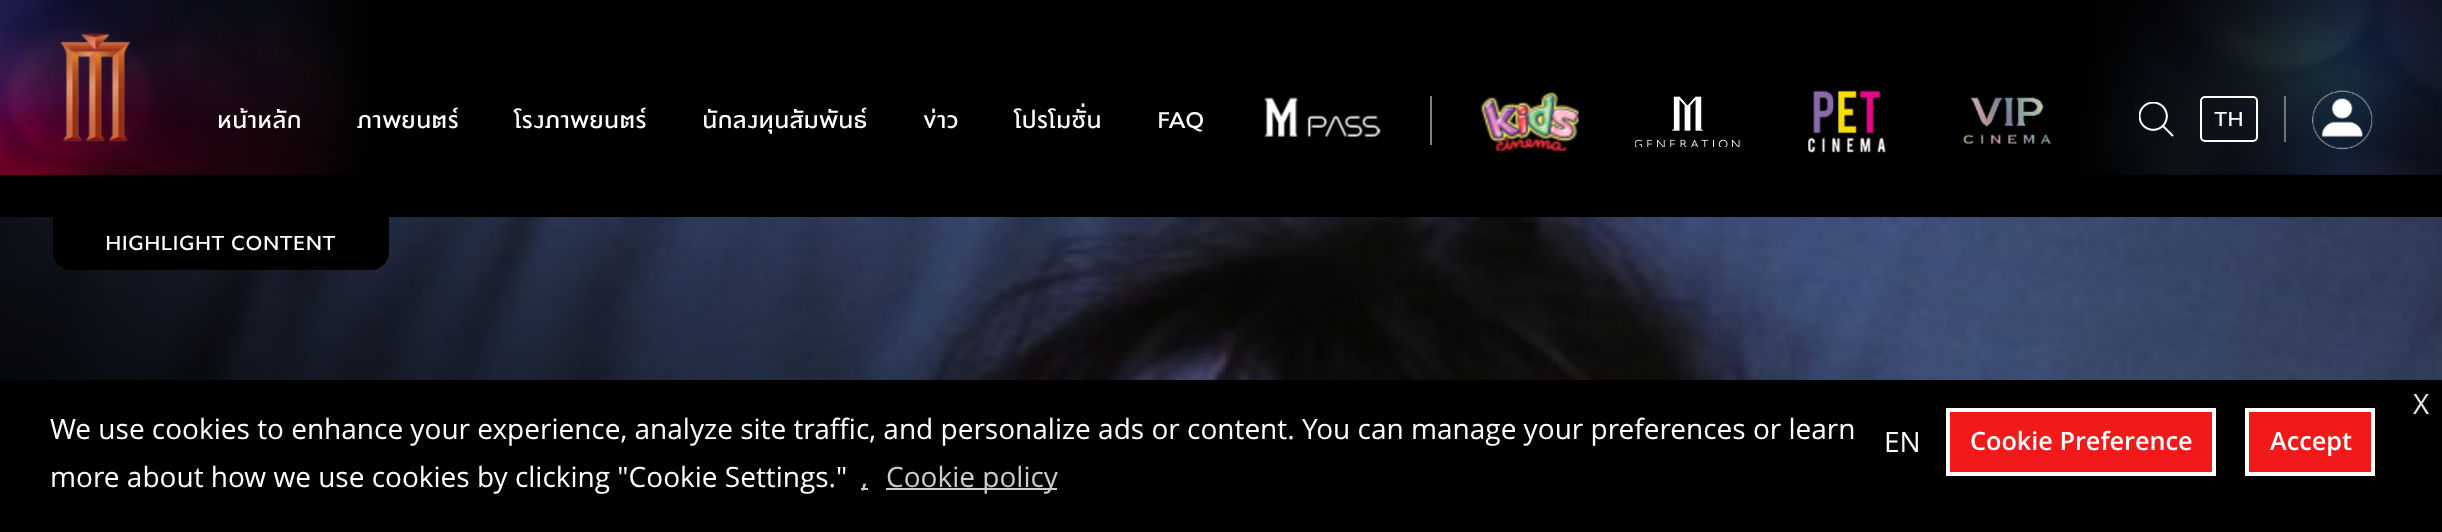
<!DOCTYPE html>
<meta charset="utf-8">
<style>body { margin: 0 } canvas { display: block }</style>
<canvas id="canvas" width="2442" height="532"></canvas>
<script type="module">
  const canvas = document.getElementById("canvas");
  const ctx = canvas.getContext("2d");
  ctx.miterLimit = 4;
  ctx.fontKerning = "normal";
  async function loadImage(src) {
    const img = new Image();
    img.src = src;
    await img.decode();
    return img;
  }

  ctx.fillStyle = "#000000";
  ctx.fillRect(0, 0, 2442, 532);
  ctx.drawImage(await loadImage("img1.png"), 0, 0, 2442, 175);
  ctx.drawImage(await loadImage("img2.png"), 60, 33, 71, 109);
  ctx.font = "31.5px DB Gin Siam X";
  ctx.fillStyle = "#ffffff";
  ctx.fillText("หน้าหลัก", 217, 128);
  ctx.fillText("ภาพยนตร์", 357, 128);
  ctx.fillText("โรงภาพยนตร์", 514, 128);
  ctx.fillText("นักลงทุนสัมพันธ์", 702, 128);
  ctx.fillText("ข่าว", 923, 128);
  ctx.fillText("โปรโมชั่น", 1014, 128);
  ctx.fillText("FAQ", 1157, 128);
  ctx.drawImage(await loadImage("img3.png"), 1264, 97, 117, 40);
  ctx.fillStyle = "#808080";
  ctx.fillRect(1430, 96, 2, 49);
  ctx.drawImage(await loadImage("img4.png"), 1480, 92, 100, 59);
  ctx.drawImage(await loadImage("img5.png"), 1635, 96, 105, 51);
  ctx.drawImage(await loadImage("img6.png"), 1808, 90, 78, 63);
  ctx.drawImage(await loadImage("img7.png"), 1963, 97, 89, 47);
  ctx.drawImage(await loadImage("img8.png"), 2139, 102, 35, 35);
  ctx.beginPath();
  ctx.roundRect(2201, 97, 56, 44, 4);
  ctx.strokeStyle = "#ffffff";
  ctx.lineWidth = 2;
  ctx.stroke();
  ctx.font = "28px DB Gin Siam X";
  ctx.fillStyle = "#ffffff";
  ctx.fillText("TH", 2214, 126);
  ctx.fillStyle = "rgba(255, 255, 255, 0.4)";
  ctx.fillRect(2284, 96, 2, 46);
  ctx.drawImage(await loadImage("img9.png"), 2312, 90, 61, 60);
  ctx.drawImage(await loadImage("img10.png"), 0, 217, 2442, 163);
  ctx.fillStyle = "#000000";
  ctx.beginPath();
  ctx.roundRect(53, 217, 336, 53, [0, 0, 18, 18]);
  ctx.fill();
  ctx.fillStyle = "#ffffff";
  ctx.fillText("HIGHLIGHT CONTENT", 105, 250);
  ctx.font = "28px Open Sans";
  ctx.fillStyle = "#e6e6e6";
  ctx.fillText("X", 2413, 414);
  ctx.fillStyle = "#ffffff";
  ctx.fillText("We use cookies to enhance your experience, analyze site traffic, and personalize ads or content. You can manage your preferences or learn", 50, 439);
  ctx.fillText("more about how we use cookies by clicking \"Cookie Settings.\"", 50, 487);
  ctx.fillStyle = "#cccccc";
  ctx.fillRect(861, 488, 7, 2);
  ctx.fillText(",", 861, 487);
  ctx.fillRect(886, 488, 171, 2);
  ctx.fillText("Cookie policy", 886, 487);
  ctx.fillStyle = "#ffffff";
  ctx.fillText("EN", 1884, 452);
  ctx.fillStyle = "rgba(34, 38, 50, 0.3)";
  ctx.filter = "blur(2px)";
  ctx.beginPath();
  ctx.rect(1950, 415, 262, 61);
  ctx.fill();
  ctx.filter = "none";
  ctx.fillStyle = "#f11919";
  ctx.beginPath();
  ctx.rect(1948, 410, 266, 64);
  ctx.fill();
  ctx.lineWidth = 4;
  ctx.stroke();
  ctx.font = "600 25.25px Open Sans";
  ctx.fillStyle = "#ffffff";
  ctx.fillText("Cookie Preference", 1970, 450);
  ctx.fillStyle = "rgba(34, 38, 50, 0.3)";
  ctx.filter = "blur(2px)";
  ctx.beginPath();
  ctx.rect(2249, 415, 122, 61);
  ctx.fill();
  ctx.filter = "none";
  ctx.fillStyle = "#f11919";
  ctx.beginPath();
  ctx.rect(2247, 410, 126, 64);
  ctx.fill();
  ctx.stroke();
  ctx.fillStyle = "#ffffff";
  ctx.fillText("Accept", 2270, 450);
</script>
